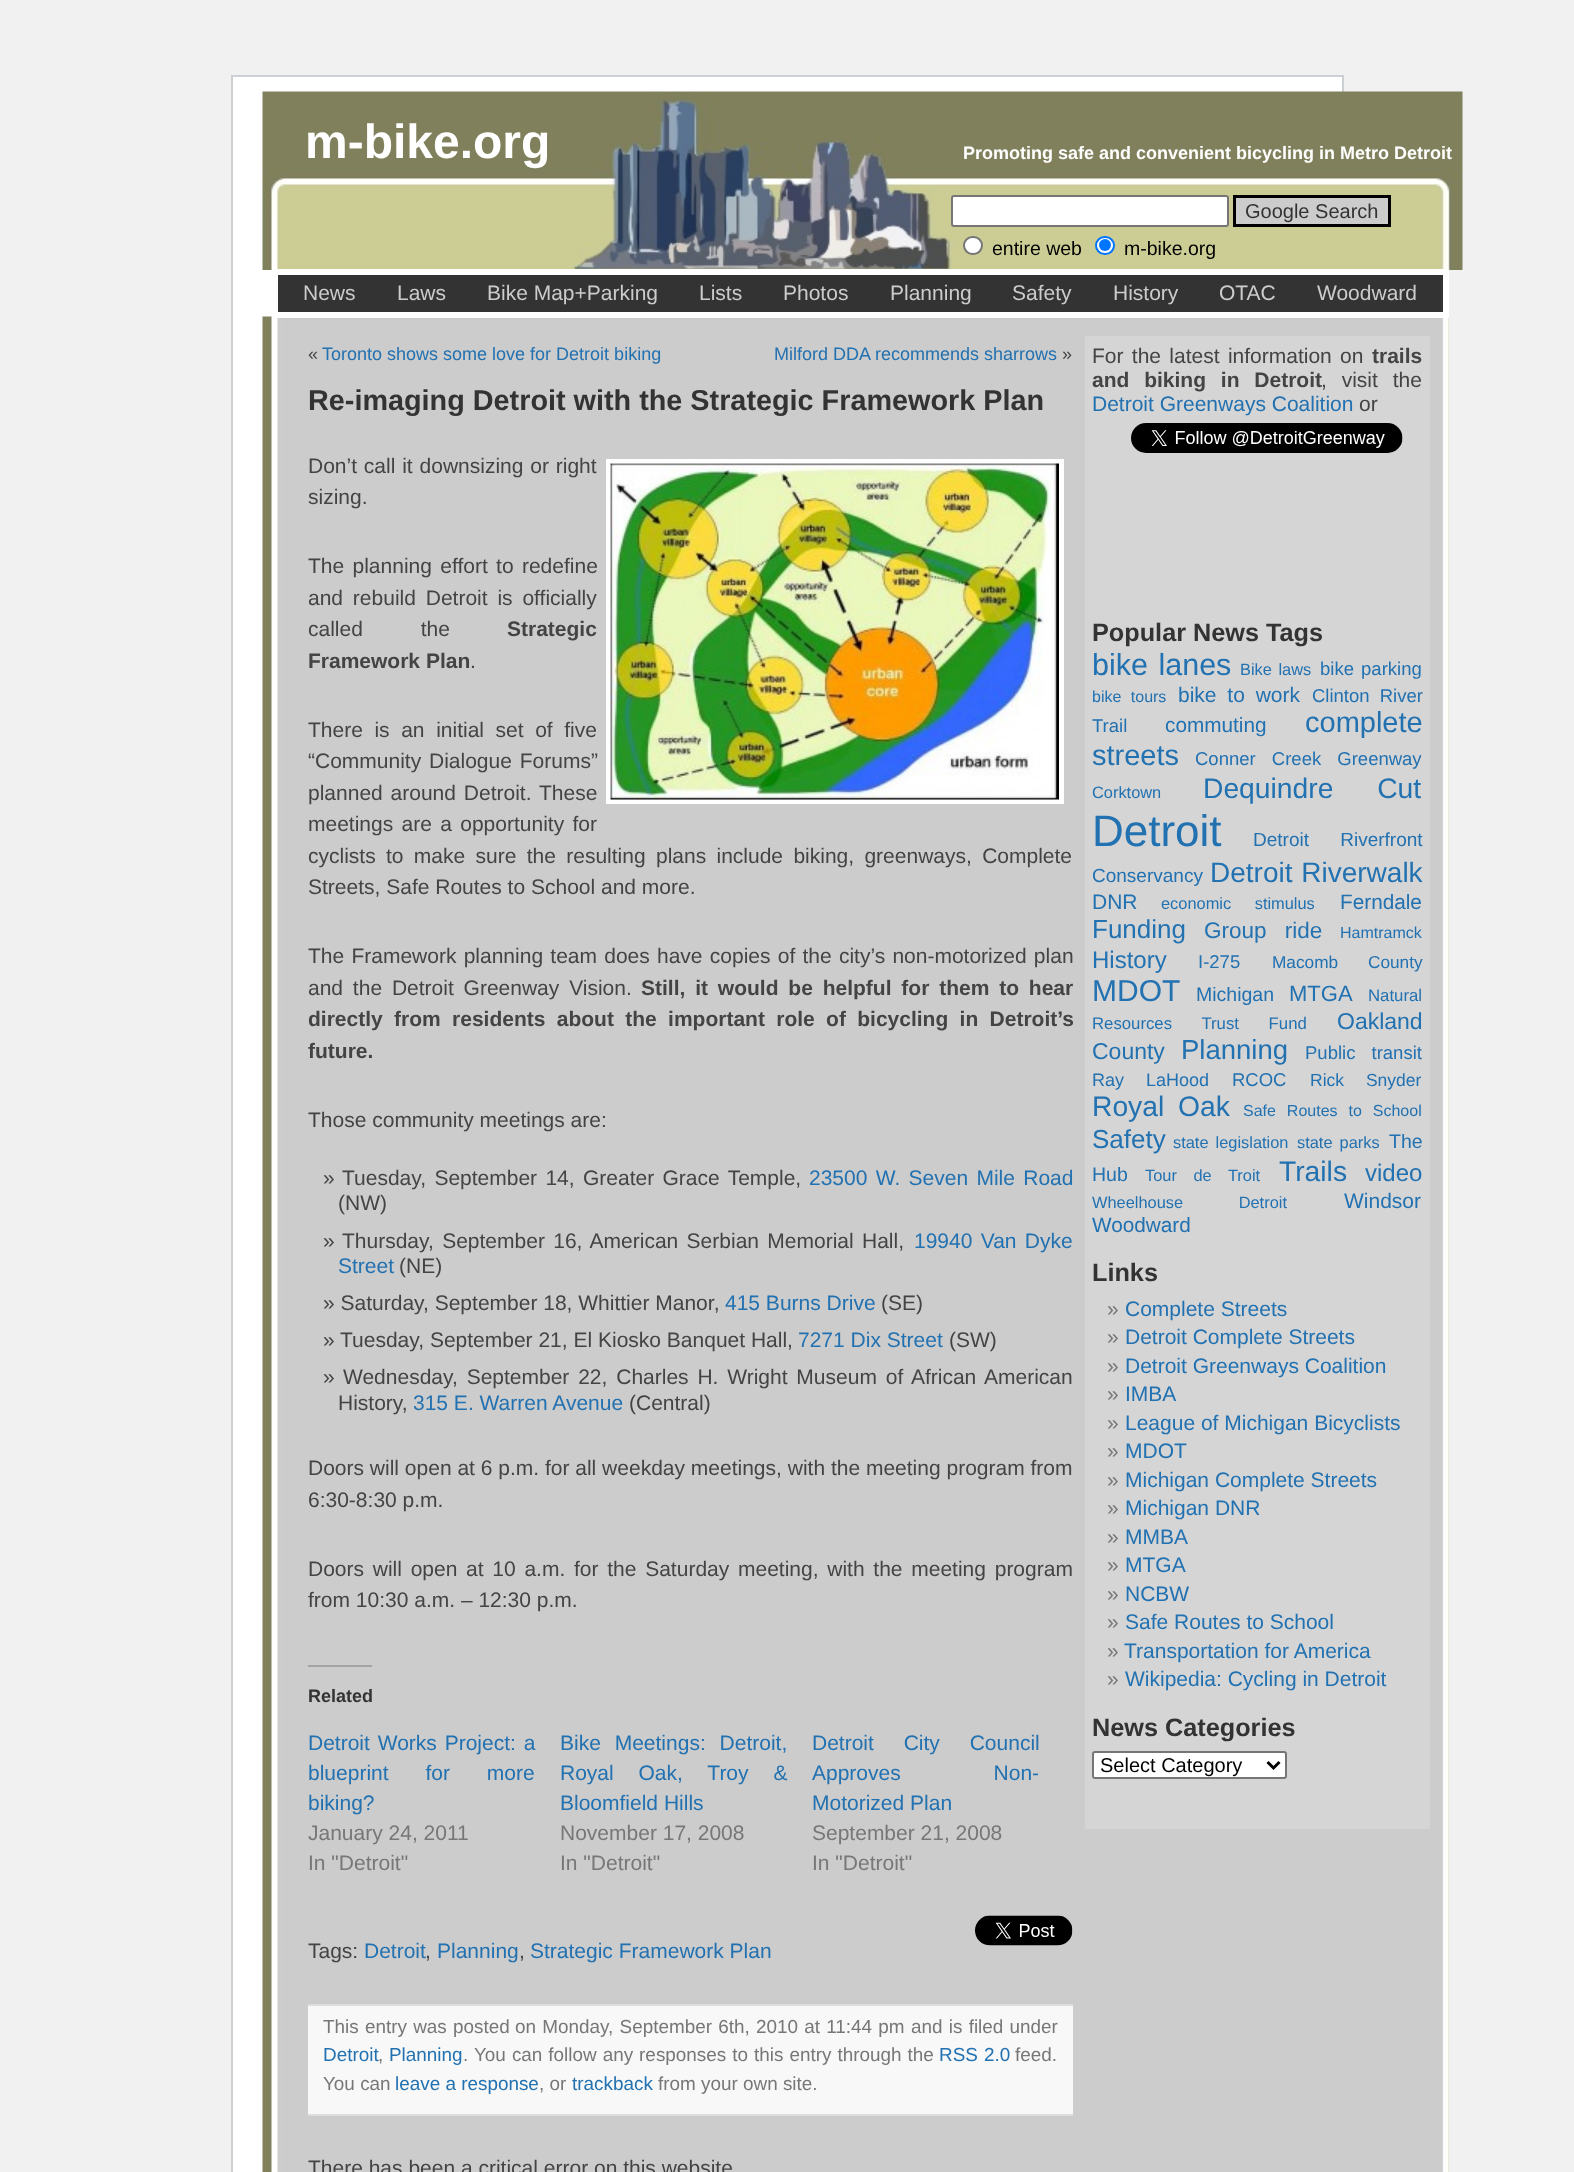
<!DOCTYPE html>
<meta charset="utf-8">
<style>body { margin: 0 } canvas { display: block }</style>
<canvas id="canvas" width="1574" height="2172"></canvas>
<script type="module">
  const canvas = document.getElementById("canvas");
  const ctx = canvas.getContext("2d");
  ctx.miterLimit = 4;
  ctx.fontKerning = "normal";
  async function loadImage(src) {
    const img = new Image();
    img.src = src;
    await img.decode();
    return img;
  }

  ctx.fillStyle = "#f1f1f1";
  ctx.fillRect(0, 0, 1574, 2172);
  ctx.fillStyle = "#ffffff";
  ctx.beginPath();
  ctx.rect(232, 76, 1111, 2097);
  ctx.fill();
  ctx.strokeStyle = "#ccd0d4";
  ctx.lineWidth = 2;
  ctx.stroke();
  ctx.drawImage(await loadImage("img1.png"), 262, 91, 1201, 179);
  ctx.font = "bold 48px Liberation Sans";
  ctx.fillText("m-bike.org", 305, 158);
  ctx.font = "bold 18px Liberation Sans";
  ctx.fillText("Promoting safe and convenient bicycling in Metro Detroit", 963, 159);
  ctx.beginPath();
  ctx.roundRect(952, 196, 276, 30, 2);
  ctx.fill();
  ctx.strokeStyle = "#767676";
  ctx.stroke();
  ctx.fillStyle = "#cccccc";
  ctx.beginPath();
  ctx.rect(1234.5, 196.5, 155, 29);
  ctx.fill();
  ctx.strokeStyle = "#000000";
  ctx.lineWidth = 3;
  ctx.stroke();
  ctx.font = "20px Liberation Sans";
  ctx.fillStyle = "#333333";
  ctx.fillText("Google Search", 1245, 218);
  ctx.fillStyle = "#ffffff";
  ctx.beginPath();
  ctx.roundRect(964, 237, 18, 17, 8.5);
  ctx.fill();
  ctx.strokeStyle = "#767676";
  ctx.lineWidth = 2;
  ctx.stroke();
  ctx.font = "19.5px Liberation Sans";
  ctx.fillStyle = "#000000";
  ctx.fillText("entire web", 992, 255);
  ctx.fillStyle = "#ffffff";
  ctx.beginPath();
  ctx.roundRect(1096, 237, 18, 17, 8.5);
  ctx.fill();
  ctx.strokeStyle = "#0075ff";
  ctx.stroke();
  ctx.fillStyle = "#0075ff";
  ctx.beginPath();
  ctx.arc(1105, 245, 6, 0, Math.PI * 2);
  ctx.fill();
  ctx.fillStyle = "#000000";
  ctx.fillText("m-bike.org", 1124, 255);
  ctx.drawImage(await loadImage("img2.png"), 262, 316, 1187, 1856);
  ctx.fillStyle = "#333333";
  ctx.beginPath();
  ctx.rect(275, 272, 1171, 43);
  ctx.fill();
  ctx.strokeStyle = "#ffffff";
  ctx.lineWidth = 6;
  ctx.stroke();
  ctx.font = "21px Liberation Sans";
  ctx.fillStyle = "#cccccc";
  ctx.fillText("News", 303, 300);
  ctx.fillText("Laws", 397, 300);
  ctx.fillText("Bike Map+Parking", 487, 300);
  ctx.fillText("Lists", 699, 300);
  ctx.fillText("Photos", 783, 300);
  ctx.fillText("Planning", 890, 300);
  ctx.fillText("Safety", 1012, 300);
  ctx.fillText("History", 1113, 300);
  ctx.fillText("OTAC", 1219, 300);
  ctx.fillText("Woodward", 1317, 300);
  ctx.font = "18px Liberation Sans";
  ctx.fillStyle = "#444444";
  ctx.fillText("«", 308, 360);
  ctx.fillStyle = "#2271b1";
  ctx.fillText("Toronto shows some love for Detroit biking", 322, 360);
  ctx.fillText("Milford DDA recommends sharrows", 774, 360);
  ctx.fillStyle = "#444444";
  ctx.fillText("»", 1062, 360);
  ctx.font = "bold 28.8px Liberation Sans";
  ctx.fillStyle = "#333333";
  ctx.fillText("Re-imaging Detroit with the Strategic Framework Plan", 308, 410);
  ctx.wordSpacing = "1px";
  ctx.font = "21px Liberation Sans";
  ctx.fillStyle = "#444444";
  ctx.fillText("Don’t call it downsizing or right", 308, 473);
  ctx.lineWidth = 5;
  ctx.strokeRect(608.5, 461.5, 453, 340);
  ctx.drawImage(await loadImage("img3.png"), 610, 463, 449, 337);
  ctx.wordSpacing = "0px";
  ctx.fillText("sizing.", 308, 504);
  ctx.wordSpacing = "2.5px";
  ctx.fillText("The planning effort to redefine", 308, 573);
  ctx.wordSpacing = "4px";
  ctx.fillText("and rebuild Detroit is officially", 308, 605);
  ctx.wordSpacing = "52px";
  ctx.fillText("called the", 308, 636);
  ctx.wordSpacing = "0px";
  ctx.font = "bold 21px Liberation Sans";
  ctx.fillText("Strategic", 507, 636);
  ctx.fillText("Framework Plan", 308, 668);
  ctx.font = "21px Liberation Sans";
  ctx.fillText(".", 470, 668);
  ctx.wordSpacing = "5.75px";
  ctx.fillText("There is an initial set of five", 308, 737);
  ctx.wordSpacing = "2px";
  ctx.fillText("“Community Dialogue Forums”", 308, 768);
  ctx.fillText("planned around Detroit. These", 308, 800);
  ctx.wordSpacing = "2.5px";
  ctx.fillText("meetings are a opportunity for", 308, 831);
  ctx.wordSpacing = "4.5px";
  ctx.fillText("cyclists to make sure the resulting plans include biking, greenways, Complete", 308, 863);
  ctx.wordSpacing = "0px";
  ctx.fillText("Streets, Safe Routes to School and more.", 308, 894);
  ctx.wordSpacing = "1.4px";
  ctx.fillText("The Framework planning team does have copies of the city’s non-motorized plan", 308, 963);
  ctx.wordSpacing = "4px";
  ctx.fillText("and the Detroit Greenway Vision.", 308, 995);
  ctx.font = "bold 21px Liberation Sans";
  ctx.fillText("Still, it would be helpful for them to hear", 641, 995);
  ctx.wordSpacing = "5.5px";
  ctx.fillText("directly from residents about the important role of bicycling in Detroit’s", 308, 1026);
  ctx.wordSpacing = "0px";
  ctx.fillText("future.", 308, 1058);
  ctx.font = "21px Liberation Sans";
  ctx.fillText("Those community meetings are:", 308, 1127);
  ctx.fillText("»", 323, 1185);
  ctx.wordSpacing = "2.5px";
  ctx.fillText("Tuesday, September 14, Greater Grace Temple,", 342, 1185);
  ctx.fillStyle = "#2271b1";
  ctx.fillText("23500 W. Seven Mile Road", 809, 1185);
  ctx.wordSpacing = "0px";
  ctx.fillStyle = "#444444";
  ctx.fillText("(NW)", 338, 1210);
  ctx.fillText("»", 323, 1248);
  ctx.wordSpacing = "2.5px";
  ctx.fillText("Thursday, September 16, American Serbian Memorial Hall,", 342, 1248);
  ctx.fillStyle = "#2271b1";
  ctx.fillText("19940 Van Dyke", 914, 1248);
  ctx.wordSpacing = "0px";
  ctx.fillText("Street", 338, 1273);
  ctx.fillStyle = "#444444";
  ctx.fillText("(NE)", 399, 1273);
  ctx.fillText("» Saturday, September 18, Whittier Manor,", 323, 1310);
  ctx.fillStyle = "#2271b1";
  ctx.fillText("415 Burns Drive", 725, 1310);
  ctx.fillStyle = "#444444";
  ctx.fillText("(SE)", 881, 1310);
  ctx.fillText("»", 323, 1347);
  ctx.fillText("Tuesday, September 21, El Kiosko Banquet Hall,", 340, 1347);
  ctx.fillStyle = "#2271b1";
  ctx.fillText("7271 Dix Street", 798, 1347);
  ctx.fillStyle = "#444444";
  ctx.fillText("(SW)", 949, 1347);
  ctx.fillText("»", 323, 1384);
  ctx.wordSpacing = "3px";
  ctx.fillText("Wednesday, September 22, Charles H. Wright Museum of African American", 343, 1384);
  ctx.wordSpacing = "0px";
  ctx.fillText("History,", 338, 1410);
  ctx.fillStyle = "#2271b1";
  ctx.fillText("315 E. Warren Avenue", 413, 1410);
  ctx.fillStyle = "#444444";
  ctx.fillText("(Central)", 629, 1410);
  ctx.fillText("Doors will open at 6 p.m. for all weekday meetings, with the meeting program from", 308, 1475);
  ctx.fillText("6:30-8:30 p.m.", 308, 1507);
  ctx.wordSpacing = "2.9px";
  ctx.fillText("Doors will open at 10 a.m. for the Saturday meeting, with the meeting program", 308, 1576);
  ctx.wordSpacing = "0px";
  ctx.fillText("from 10:30 a.m. – 12:30 p.m.", 308, 1607);
  ctx.fillStyle = "#a3a3a3";
  ctx.fillRect(308, 1665, 64, 2);
  ctx.font = "bold 18px Liberation Sans";
  ctx.fillStyle = "#333333";
  ctx.fillText("Related", 308, 1702);
  ctx.wordSpacing = "2px";
  ctx.font = "21px Liberation Sans";
  ctx.fillStyle = "#2271b1";
  ctx.fillText("Detroit Works Project: a", 308, 1750);
  ctx.wordSpacing = "31px";
  ctx.fillText("blueprint for more", 308, 1780);
  ctx.wordSpacing = "0px";
  ctx.fillText("biking?", 308, 1810);
  ctx.fillStyle = "#777777";
  ctx.fillText("January 24, 2011", 308, 1840);
  ctx.fillText("In \"Detroit\"", 308, 1870);
  ctx.wordSpacing = "8px";
  ctx.fillStyle = "#2271b1";
  ctx.fillText("Bike Meetings: Detroit,", 560, 1750);
  ctx.wordSpacing = "19px";
  ctx.fillText("Royal Oak, Troy &", 560, 1780);
  ctx.wordSpacing = "0px";
  ctx.fillText("Bloomfield Hills", 560, 1810);
  ctx.fillStyle = "#777777";
  ctx.fillText("November 17, 2008", 560, 1840);
  ctx.fillText("In \"Detroit\"", 560, 1870);
  ctx.wordSpacing = "24px";
  ctx.fillStyle = "#2271b1";
  ctx.fillText("Detroit City Council", 812, 1750);
  ctx.wordSpacing = "87px";
  ctx.fillText("Approves Non-", 812, 1780);
  ctx.wordSpacing = "0px";
  ctx.fillText("Motorized Plan", 812, 1810);
  ctx.fillStyle = "#777777";
  ctx.fillText("September 21, 2008", 812, 1840);
  ctx.fillText("In \"Detroit\"", 812, 1870);
  ctx.drawImage(await loadImage("img4.png"), 975, 1915, 98, 31);
  ctx.fillStyle = "#444444";
  ctx.fillText("Tags:", 308, 1958);
  ctx.fillStyle = "#2271b1";
  ctx.fillText("Detroit", 364, 1958);
  ctx.fillStyle = "#444444";
  ctx.fillText(",", 425, 1958);
  ctx.fillStyle = "#2271b1";
  ctx.fillText("Planning", 437, 1958);
  ctx.fillStyle = "#444444";
  ctx.fillText(",", 519, 1958);
  ctx.fillStyle = "#2271b1";
  ctx.fillText("Strategic Framework Plan", 530, 1958);
  ctx.fillStyle = "#f8f8f8";
  ctx.fillRect(308, 2006, 765, 108);
  ctx.fillStyle = "#dddddd";
  ctx.fillRect(308, 2004, 765, 2);
  ctx.fillRect(308, 2114, 765, 2);
  ctx.wordSpacing = "1px";
  ctx.font = "18.9px Liberation Sans";
  ctx.fillStyle = "#777777";
  ctx.fillText("This entry was posted", 323, 2033);
  ctx.fillText("on Monday, September 6th, 2010 at 11:44 pm", 515, 2033);
  ctx.fillText("and is filed under", 911, 2033);
  ctx.wordSpacing = "0px";
  ctx.fillStyle = "#2271b1";
  ctx.fillText("Detroit", 323, 2061);
  ctx.fillStyle = "#777777";
  ctx.fillText(",", 378, 2061);
  ctx.fillStyle = "#2271b1";
  ctx.fillText("Planning", 389, 2061);
  ctx.fillStyle = "#777777";
  ctx.fillText(".", 463, 2061);
  ctx.wordSpacing = "0.75px";
  ctx.fillText("You can follow any responses to this entry through the", 474, 2061);
  ctx.wordSpacing = "1px";
  ctx.fillStyle = "#2271b1";
  ctx.fillText("RSS 2.0", 939, 2061);
  ctx.wordSpacing = "0px";
  ctx.fillStyle = "#777777";
  ctx.fillText("feed.", 1015, 2061);
  ctx.fillText("You can", 323, 2090);
  ctx.fillStyle = "#2271b1";
  ctx.fillText("leave a response", 395, 2090);
  ctx.fillStyle = "#777777";
  ctx.fillText(", or", 539, 2090);
  ctx.fillStyle = "#2271b1";
  ctx.fillText("trackback", 572, 2090);
  ctx.fillStyle = "#777777";
  ctx.fillText("from your own site.", 658, 2090);
  ctx.font = "21px Liberation Sans";
  ctx.fillStyle = "#444444";
  ctx.fillText("There has been a critical error on this website", 308, 2175);
  ctx.fillStyle = "#d5d5d5";
  ctx.fillRect(1085, 336, 345, 1493);
  ctx.wordSpacing = "2.5px";
  ctx.fillStyle = "#444444";
  ctx.fillText("For the latest information on", 1092, 363);
  ctx.wordSpacing = "0px";
  ctx.font = "bold 21px Liberation Sans";
  ctx.fillText("trails", 1372, 363);
  ctx.wordSpacing = "9px";
  ctx.fillText("and biking in Detroit", 1092, 387);
  ctx.font = "21px Liberation Sans";
  ctx.fillText(", visit the", 1321, 387);
  ctx.wordSpacing = "0px";
  ctx.fillStyle = "#2271b1";
  ctx.fillText("Detroit Greenways Coalition", 1092, 411);
  ctx.fillStyle = "#444444";
  ctx.fillText("or", 1359, 411);
  ctx.drawImage(await loadImage("img5.png"), 1131, 423, 272, 30);
  ctx.font = "bold 25.25px Liberation Sans";
  ctx.fillStyle = "#333333";
  ctx.fillText("Popular News Tags", 1092, 641);
  ctx.wordSpacing = "2px";
  ctx.font = "30.5px Liberation Sans";
  ctx.fillStyle = "#2271b1";
  ctx.fillText("bike lanes", 1092, 675);
  ctx.font = "16.4px Liberation Sans";
  ctx.fillText("Bike laws", 1240, 675);
  ctx.font = "18.5px Liberation Sans";
  ctx.fillText("bike parking", 1320, 675);
  ctx.wordSpacing = "5px";
  ctx.font = "16px Liberation Sans";
  ctx.fillText("bike tours", 1092, 702);
  ctx.font = "21px Liberation Sans";
  ctx.fillText("bike to work", 1178, 702);
  ctx.font = "18.5px Liberation Sans";
  ctx.fillText("Clinton River", 1312, 702);
  ctx.wordSpacing = "0px";
  ctx.fillText("Trail", 1092, 732);
  ctx.font = "20.75px Liberation Sans";
  ctx.fillText("commuting", 1165, 732);
  ctx.font = "29px Liberation Sans";
  ctx.fillText("complete", 1305, 732);
  ctx.fillText("streets", 1092, 765);
  ctx.wordSpacing = "11px";
  ctx.font = "18.5px Liberation Sans";
  ctx.fillText("Conner Creek Greenway", 1195, 765);
  ctx.wordSpacing = "0px";
  ctx.font = "16.4px Liberation Sans";
  ctx.fillText("Corktown", 1092, 798);
  ctx.wordSpacing = "36px";
  ctx.font = "28.25px Liberation Sans";
  ctx.fillText("Dequindre Cut", 1203, 798);
  ctx.wordSpacing = "0px";
  ctx.font = "44px Liberation Sans";
  ctx.fillText("Detroit", 1092, 846);
  ctx.wordSpacing = "26px";
  ctx.font = "19px Liberation Sans";
  ctx.fillText("Detroit Riverfront", 1253, 846);
  ctx.wordSpacing = "0px";
  ctx.fillText("Conservancy", 1092, 882);
  ctx.wordSpacing = "1px";
  ctx.font = "28px Liberation Sans";
  ctx.fillText("Detroit Riverwalk", 1210, 882);
  ctx.wordSpacing = "0px";
  ctx.font = "21px Liberation Sans";
  ctx.fillText("DNR", 1092, 909);
  ctx.wordSpacing = "19px";
  ctx.font = "16.4px Liberation Sans";
  ctx.fillText("economic stimulus", 1161, 909);
  ctx.wordSpacing = "0px";
  ctx.font = "20.75px Liberation Sans";
  ctx.fillText("Ferndale", 1340, 909);
  ctx.font = "26px Liberation Sans";
  ctx.fillText("Funding", 1092, 938);
  ctx.wordSpacing = "12px";
  ctx.font = "22.5px Liberation Sans";
  ctx.fillText("Group ride", 1204, 938);
  ctx.wordSpacing = "0px";
  ctx.font = "16px Liberation Sans";
  ctx.fillText("Hamtramck", 1340, 938);
  ctx.font = "24px Liberation Sans";
  ctx.fillText("History", 1092, 968);
  ctx.font = "18.5px Liberation Sans";
  ctx.fillText("I-275", 1198, 968);
  ctx.wordSpacing = "25px";
  ctx.font = "17.25px Liberation Sans";
  ctx.fillText("Macomb County", 1272, 968);
  ctx.wordSpacing = "0px";
  ctx.font = "30px Liberation Sans";
  ctx.fillText("MDOT", 1092, 1001);
  ctx.font = "19.5px Liberation Sans";
  ctx.fillText("Michigan", 1196, 1001);
  ctx.font = "22px Liberation Sans";
  ctx.fillText("MTGA", 1289, 1001);
  ctx.font = "16.75px Liberation Sans";
  ctx.fillText("Natural", 1368, 1001);
  ctx.wordSpacing = "25px";
  ctx.fillText("Resources Trust Fund", 1092, 1029);
  ctx.wordSpacing = "0px";
  ctx.font = "23px Liberation Sans";
  ctx.fillText("Oakland", 1337, 1029);
  ctx.fillText("County", 1092, 1059);
  ctx.font = "27.5px Liberation Sans";
  ctx.fillText("Planning", 1181, 1059);
  ctx.wordSpacing = "11px";
  ctx.font = "18.5px Liberation Sans";
  ctx.fillText("Public transit", 1305, 1059);
  ctx.wordSpacing = "17px";
  ctx.font = "18px Liberation Sans";
  ctx.fillText("Ray LaHood", 1092, 1086);
  ctx.wordSpacing = "0px";
  ctx.font = "18.5px Liberation Sans";
  ctx.fillText("RCOC", 1232, 1086);
  ctx.wordSpacing = "17px";
  ctx.font = "17.5px Liberation Sans";
  ctx.fillText("Rick Snyder", 1310, 1086);
  ctx.wordSpacing = "6px";
  ctx.font = "28.25px Liberation Sans";
  ctx.fillText("Royal Oak", 1092, 1116);
  ctx.wordSpacing = "6.5px";
  ctx.font = "16px Liberation Sans";
  ctx.fillText("Safe Routes to School", 1243, 1116);
  ctx.wordSpacing = "0px";
  ctx.font = "26px Liberation Sans";
  ctx.fillText("Safety", 1092, 1148);
  ctx.wordSpacing = "2.5px";
  ctx.font = "16.4px Liberation Sans";
  ctx.fillText("state legislation", 1173, 1148);
  ctx.fillText("state parks", 1297, 1148);
  ctx.wordSpacing = "0px";
  ctx.font = "19.5px Liberation Sans";
  ctx.fillText("The", 1389, 1148);
  ctx.fillText("Hub", 1092, 1181);
  ctx.wordSpacing = "12px";
  ctx.font = "16.4px Liberation Sans";
  ctx.fillText("Tour de Troit", 1145, 1181);
  ctx.wordSpacing = "0px";
  ctx.font = "28.25px Liberation Sans";
  ctx.fillText("Trails", 1279, 1181);
  ctx.font = "24px Liberation Sans";
  ctx.fillText("video", 1365, 1181);
  ctx.wordSpacing = "51px";
  ctx.font = "16.4px Liberation Sans";
  ctx.fillText("Wheelhouse Detroit", 1092, 1208);
  ctx.wordSpacing = "0px";
  ctx.font = "21px Liberation Sans";
  ctx.fillText("Windsor", 1344, 1208);
  ctx.font = "20.75px Liberation Sans";
  ctx.fillText("Woodward", 1092, 1232);
  ctx.font = "bold 25.25px Liberation Sans";
  ctx.fillStyle = "#333333";
  ctx.fillText("Links", 1092, 1281);
  ctx.font = "21px Liberation Sans";
  ctx.fillStyle = "#777777";
  ctx.fillText("»", 1107, 1316);
  ctx.fillStyle = "#2271b1";
  ctx.fillText("Complete Streets", 1125, 1316);
  ctx.fillStyle = "#777777";
  ctx.fillText("»", 1107, 1344);
  ctx.fillStyle = "#2271b1";
  ctx.fillText("Detroit Complete Streets", 1125, 1344);
  ctx.fillStyle = "#777777";
  ctx.fillText("»", 1107, 1373);
  ctx.fillStyle = "#2271b1";
  ctx.fillText("Detroit Greenways Coalition", 1125, 1373);
  ctx.fillStyle = "#777777";
  ctx.fillText("»", 1107, 1401);
  ctx.fillStyle = "#2271b1";
  ctx.fillText("IMBA", 1125, 1401);
  ctx.fillStyle = "#777777";
  ctx.fillText("»", 1107, 1430);
  ctx.fillStyle = "#2271b1";
  ctx.fillText("League of Michigan Bicyclists", 1125, 1430);
  ctx.fillStyle = "#777777";
  ctx.fillText("»", 1107, 1458);
  ctx.fillStyle = "#2271b1";
  ctx.fillText("MDOT", 1125, 1458);
  ctx.fillStyle = "#777777";
  ctx.fillText("»", 1107, 1487);
  ctx.fillStyle = "#2271b1";
  ctx.fillText("Michigan Complete Streets", 1125, 1487);
  ctx.fillStyle = "#777777";
  ctx.fillText("»", 1107, 1515);
  ctx.fillStyle = "#2271b1";
  ctx.fillText("Michigan DNR", 1125, 1515);
  ctx.fillStyle = "#777777";
  ctx.fillText("»", 1107, 1544);
  ctx.fillStyle = "#2271b1";
  ctx.fillText("MMBA", 1125, 1544);
  ctx.fillStyle = "#777777";
  ctx.fillText("»", 1107, 1572);
  ctx.fillStyle = "#2271b1";
  ctx.fillText("MTGA", 1125, 1572);
  ctx.fillStyle = "#777777";
  ctx.fillText("»", 1107, 1601);
  ctx.fillStyle = "#2271b1";
  ctx.fillText("NCBW", 1125, 1601);
  ctx.fillStyle = "#777777";
  ctx.fillText("»", 1107, 1629);
  ctx.fillStyle = "#2271b1";
  ctx.fillText("Safe Routes to School", 1125, 1629);
  ctx.fillStyle = "#777777";
  ctx.fillText("»", 1107, 1658);
  ctx.fillStyle = "#2271b1";
  ctx.fillText("Transportation for America", 1124, 1658);
  ctx.fillStyle = "#777777";
  ctx.fillText("»", 1107, 1686);
  ctx.fillStyle = "#2271b1";
  ctx.fillText("Wikipedia: Cycling in Detroit", 1125, 1686);
  ctx.font = "bold 25.25px Liberation Sans";
  ctx.fillStyle = "#333333";
  ctx.fillText("News Categories", 1092, 1736);
  ctx.fillStyle = "#ffffff";
  ctx.beginPath();
  ctx.roundRect(1093, 1752, 193, 26, 2);
  ctx.fill();
  ctx.strokeStyle = "#767676";
  ctx.lineWidth = 2;
  ctx.stroke();
  ctx.beginPath();
  ctx.moveTo(1267.5, 1762);
  ctx.lineTo(1273.5, 1768);
  ctx.lineTo(1279.5, 1762);
  ctx.strokeStyle = "#000000";
  ctx.lineWidth = 3;
  ctx.stroke();
  ctx.font = "20px Liberation Sans";
  ctx.fillStyle = "#000000";
  ctx.fillText("Select Category", 1100, 1772);
</script>
